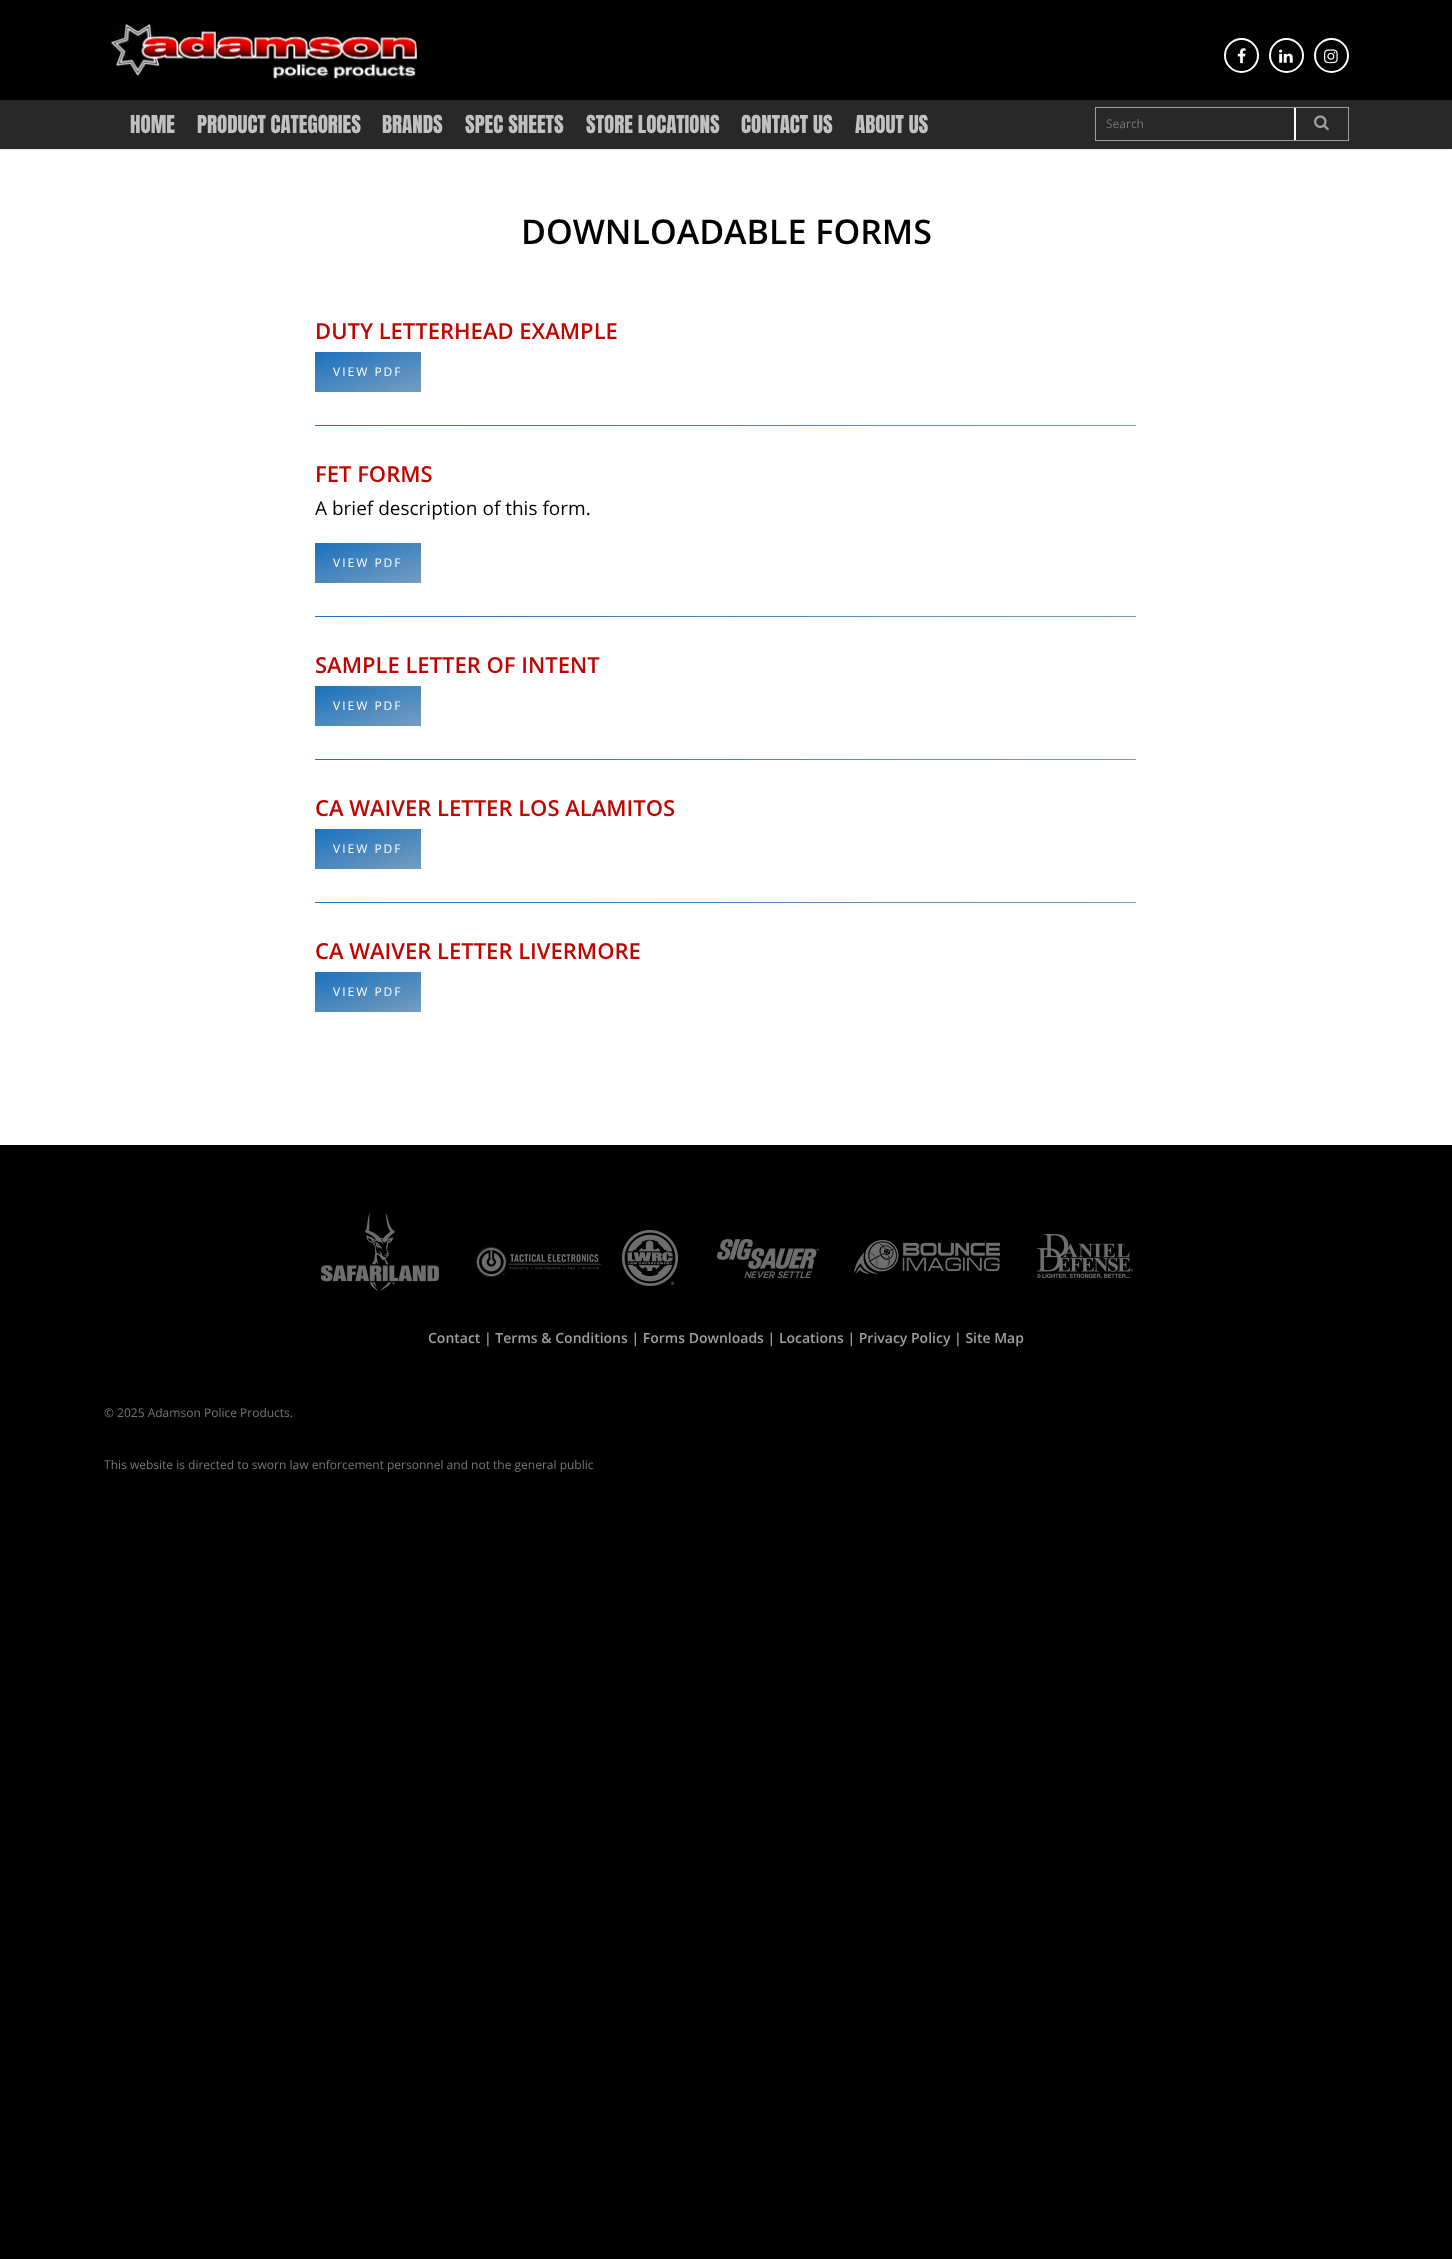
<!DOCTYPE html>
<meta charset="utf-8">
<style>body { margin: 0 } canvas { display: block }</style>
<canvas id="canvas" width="1452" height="2259"></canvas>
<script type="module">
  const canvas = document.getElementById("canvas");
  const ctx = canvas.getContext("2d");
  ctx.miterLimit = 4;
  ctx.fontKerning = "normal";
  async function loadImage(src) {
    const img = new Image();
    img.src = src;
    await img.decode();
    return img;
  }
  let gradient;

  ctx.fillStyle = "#000000";
  ctx.fillRect(0, 0, 1452, 2259);
  ctx.fillStyle = "#ffffff";
  ctx.fillRect(0, 149, 1452, 996);
  ctx.save();
  ctx.beginPath();
  ctx.rect(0, 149, 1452, 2);
  ctx.clip();
  ctx.fillStyle = "rgba(0, 0, 0, 0.22)";
  ctx.filter = "blur(1.5px)";
  ctx.beginPath();
  ctx.rect(0, 0, 1452, 149);
  ctx.fill();
  ctx.filter = "none";
  ctx.restore();
  ctx.drawImage(await loadImage("img1.png"), 111, 24, 306, 56);
  ctx.beginPath();
  ctx.arc(1241.5, 55.5, 16.5, 0, Math.PI * 2);
  ctx.strokeStyle = "#ffffff";
  ctx.lineWidth = 2;
  ctx.stroke();
  ctx.drawImage(await loadImage("img2.png"), 1237, 48, 9, 16);
  ctx.beginPath();
  ctx.arc(1286.5, 55.5, 16.5, 0, Math.PI * 2);
  ctx.stroke();
  ctx.drawImage(await loadImage("img3.png"), 1279, 49, 14, 14);
  ctx.beginPath();
  ctx.arc(1331.5, 55.5, 16.5, 0, Math.PI * 2);
  ctx.stroke();
  ctx.drawImage(await loadImage("img4.png"), 1324, 49, 14, 15);
  ctx.fillStyle = "#282828";
  ctx.fillRect(0, 100, 1452, 49);
  ctx.font = "21px Anton";
  ctx.fillStyle = "#c1c1c1";
  ctx.fillText("HOME", 130, 133);
  ctx.fillText("PRODUCT CATEGORIES", 197, 133);
  ctx.fillText("BRANDS", 382, 133);
  ctx.fillText("SPEC SHEETS", 465, 133);
  ctx.fillText("STORE LOCATIONS", 586, 133);
  ctx.fillText("CONTACT US", 741, 133);
  ctx.fillText("ABOUT US", 855, 133);
  ctx.strokeStyle = "#a0a0a0";
  ctx.lineWidth = 1;
  ctx.strokeRect(1095.5, 107.5, 253, 33);
  ctx.fillStyle = "#ffffff";
  ctx.fillRect(1294, 108, 2, 32);
  ctx.font = "12px Open Sans";
  ctx.fillStyle = "#777777";
  ctx.fillText("Search", 1106, 128);
  ctx.drawImage(await loadImage("img5.png"), 1314, 115, 15, 16);
  ctx.font = "600 34px Open Sans";
  ctx.fillStyle = "#000000";
  ctx.fillText("DOWNLOADABLE FORMS", 521, 244);
  ctx.font = "600 22px Open Sans";
  ctx.fillStyle = "#c00500";
  ctx.fillText("DUTY LETTERHEAD EXAMPLE", 315, 339);
  gradient = ctx.createLinearGradient(357, 341, 378, 404);
  gradient.addColorStop(0, "#1e73be");
  gradient.addColorStop(1, "#749cbf");
  ctx.fillStyle = gradient;
  ctx.fillRect(318, 355, 100, 34);
  ctx.drawImage(await loadImage("img6.png"), 315, 352, 106, 40);
  ctx.letterSpacing = "2px";
  ctx.font = "12px Open Sans";
  ctx.fillStyle = "#ffffff";
  ctx.fillText("VIEW PDF", 333, 376);
  gradient = ctx.createLinearGradient(315, 426, 1136, 426);
  gradient.addColorStop(0, "#1e73be");
  gradient.addColorStop(1, "#749cbf");
  ctx.fillStyle = gradient;
  ctx.fillRect(315, 425, 821, 1);
  ctx.letterSpacing = "0px";
  ctx.font = "600 22px Open Sans";
  ctx.fillStyle = "#c00500";
  ctx.fillText("FET FORMS", 315, 482);
  ctx.font = "19px Open Sans";
  ctx.fillStyle = "#000000";
  ctx.fillText("A brief description of this form.", 315, 515);
  gradient = ctx.createLinearGradient(357, 532, 378, 595);
  gradient.addColorStop(0, "#1e73be");
  gradient.addColorStop(1, "#749cbf");
  ctx.fillStyle = gradient;
  ctx.fillRect(318, 546, 100, 34);
  ctx.drawImage(await loadImage("img7.png"), 315, 543, 106, 40);
  ctx.letterSpacing = "2px";
  ctx.font = "12px Open Sans";
  ctx.fillStyle = "#ffffff";
  ctx.fillText("VIEW PDF", 333, 567);
  gradient = ctx.createLinearGradient(315, 617, 1136, 617);
  gradient.addColorStop(0, "#1e73be");
  gradient.addColorStop(1, "#749cbf");
  ctx.fillStyle = gradient;
  ctx.fillRect(315, 616, 821, 1);
  ctx.letterSpacing = "0px";
  ctx.font = "600 22px Open Sans";
  ctx.fillStyle = "#c00500";
  ctx.fillText("SAMPLE LETTER OF INTENT", 315, 673);
  gradient = ctx.createLinearGradient(357, 675, 378, 738);
  gradient.addColorStop(0, "#1e73be");
  gradient.addColorStop(1, "#749cbf");
  ctx.fillStyle = gradient;
  ctx.fillRect(318, 689, 100, 34);
  ctx.drawImage(await loadImage("img6.png"), 315, 686, 106, 40);
  ctx.letterSpacing = "2px";
  ctx.font = "12px Open Sans";
  ctx.fillStyle = "#ffffff";
  ctx.fillText("VIEW PDF", 333, 710);
  gradient = ctx.createLinearGradient(315, 760, 1136, 760);
  gradient.addColorStop(0, "#1e73be");
  gradient.addColorStop(1, "#749cbf");
  ctx.fillStyle = gradient;
  ctx.fillRect(315, 759, 821, 1);
  ctx.letterSpacing = "0px";
  ctx.font = "600 22px Open Sans";
  ctx.fillStyle = "#c00500";
  ctx.fillText("CA WAIVER LETTER LOS ALAMITOS", 315, 816);
  gradient = ctx.createLinearGradient(357, 818, 378, 881);
  gradient.addColorStop(0, "#1e73be");
  gradient.addColorStop(1, "#749cbf");
  ctx.fillStyle = gradient;
  ctx.fillRect(318, 832, 100, 34);
  ctx.drawImage(await loadImage("img7.png"), 315, 829, 106, 40);
  ctx.letterSpacing = "2px";
  ctx.font = "12px Open Sans";
  ctx.fillStyle = "#ffffff";
  ctx.fillText("VIEW PDF", 333, 853);
  gradient = ctx.createLinearGradient(315, 903, 1136, 903);
  gradient.addColorStop(0, "#1e73be");
  gradient.addColorStop(1, "#749cbf");
  ctx.fillStyle = gradient;
  ctx.fillRect(315, 902, 821, 1);
  ctx.letterSpacing = "0px";
  ctx.font = "600 22px Open Sans";
  ctx.fillStyle = "#c00500";
  ctx.fillText("CA WAIVER LETTER LIVERMORE", 315, 959);
  gradient = ctx.createLinearGradient(357, 961, 378, 1024);
  gradient.addColorStop(0, "#1e73be");
  gradient.addColorStop(1, "#749cbf");
  ctx.fillStyle = gradient;
  ctx.fillRect(318, 975, 100, 34);
  ctx.drawImage(await loadImage("img6.png"), 315, 972, 106, 40);
  ctx.letterSpacing = "2px";
  ctx.font = "12px Open Sans";
  ctx.fillStyle = "#ffffff";
  ctx.fillText("VIEW PDF", 333, 996);
  ctx.drawImage(await loadImage("img8.png"), 321, 1213, 812, 78);
  ctx.letterSpacing = "0px";
  ctx.font = "600 14px Open Sans";
  ctx.fillStyle = "#9e9e9e";
  ctx.fillText("Contact | Terms & Conditions | Forms Downloads | Locations | Privacy Policy | Site Map", 428, 1343);
  ctx.font = "12px Open Sans";
  ctx.fillStyle = "#777777";
  ctx.fillText("© 2025 Adamson Police Products.", 104, 1417);
  ctx.fillText("This website is directed to sworn law enforcement personnel and not the general public", 104, 1469);
</script>
